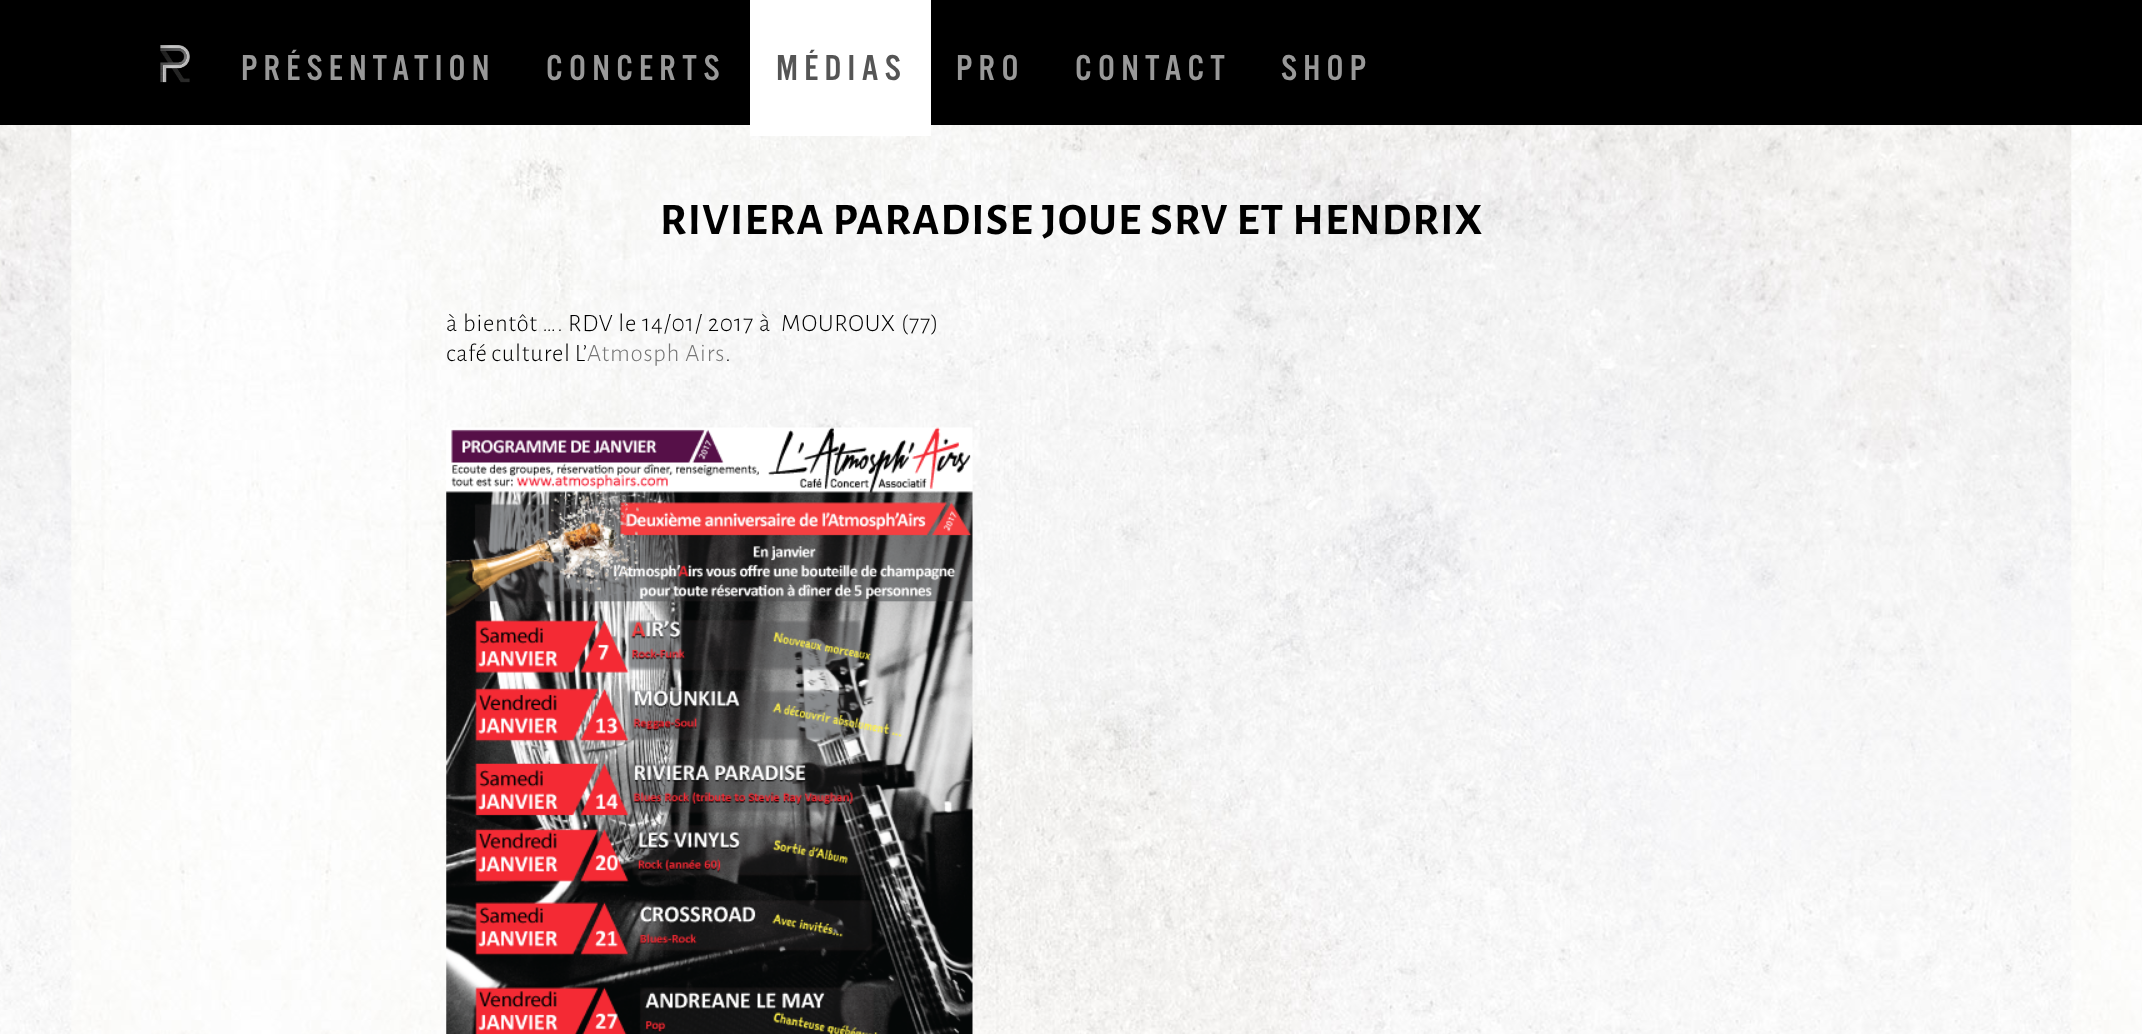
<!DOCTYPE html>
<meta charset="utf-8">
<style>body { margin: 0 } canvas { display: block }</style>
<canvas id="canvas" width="2142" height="1034"></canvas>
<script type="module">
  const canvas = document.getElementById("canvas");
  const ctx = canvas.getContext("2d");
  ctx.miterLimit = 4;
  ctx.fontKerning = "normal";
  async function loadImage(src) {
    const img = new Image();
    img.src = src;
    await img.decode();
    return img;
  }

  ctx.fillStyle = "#ffffff";
  ctx.fillRect(0, 0, 2142, 1034);
  ctx.drawImage(await loadImage("img1.png"), 0, 125, 2142, 909);
  ctx.fillStyle = "#000000";
  ctx.fillRect(0, 0, 2142, 125);
  ctx.drawImage(await loadImage("img2.png"), 160, 45, 30, 38);
  ctx.letterSpacing = "6.25px";
  ctx.font = "37.5px 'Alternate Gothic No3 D'";
  ctx.fillStyle = "#999999";
  ctx.fillText("PRÉSENTATION", 241, 80);
  ctx.fillText("CONCERTS", 546, 80);
  ctx.fillStyle = "#ffffff";
  ctx.fillRect(750, 0, 181, 136);
  ctx.fillStyle = "#555555";
  ctx.fillText("MÉDIAS", 776, 80);
  ctx.fillStyle = "#999999";
  ctx.fillText("PRO", 956, 80);
  ctx.fillText("CONTACT", 1075, 80);
  ctx.fillText("SHOP", 1281, 80);
  ctx.letterSpacing = "1.25px";
  ctx.font = "bold 45px Alegreya Sans";
  ctx.fillStyle = "#000000";
  ctx.fillText("RIVIERA PARADISE JOUE SRV ET HENDRIX", 660, 234);
  ctx.letterSpacing = "0.75px";
  ctx.font = "300 25px Alegreya Sans";
  ctx.fillText("à bientôt …. RDV le 14/01/ 2017 à  MOUROUX (77)", 446, 331);
  ctx.wordSpacing = "-1px";
  ctx.fillText("café culturel L’", 446, 361);
  ctx.wordSpacing = "0px";
  ctx.fillStyle = "#777777";
  ctx.fillText("Atmosph Airs", 587, 361);
  ctx.fillStyle = "#000000";
  ctx.fillText(".", 725, 361);
  ctx.drawImage(await loadImage("img3.png"), 446, 427, 527, 607);
</script>
